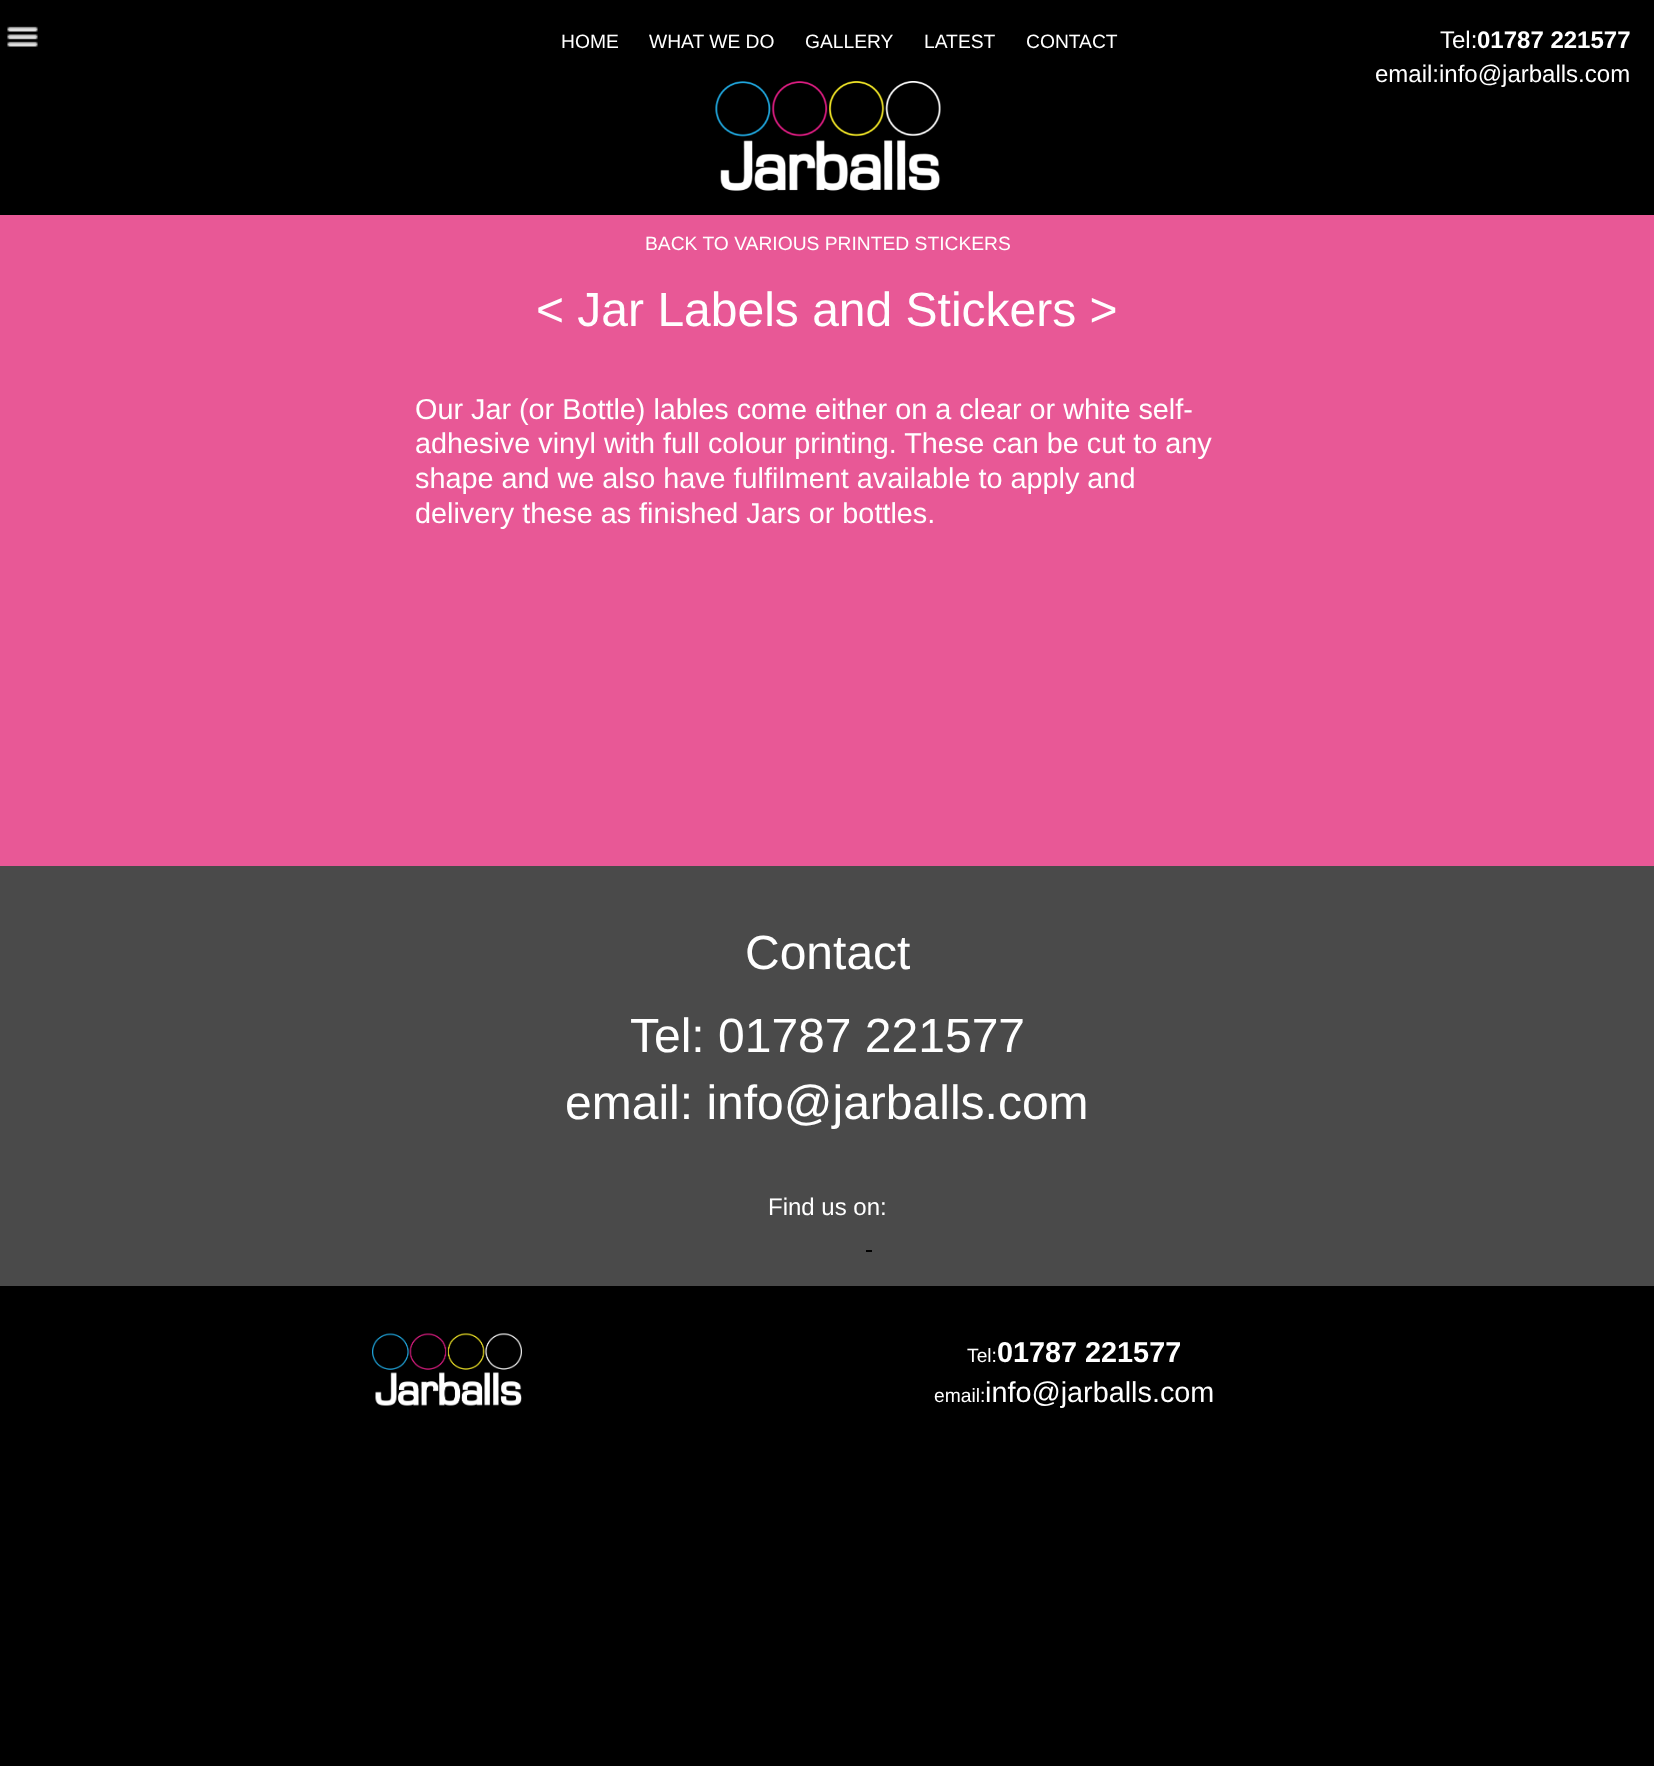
<!DOCTYPE html>
<meta charset="utf-8">
<style>body { margin: 0 } canvas { display: block }</style>
<canvas id="canvas" width="1654" height="1766"></canvas>
<script type="module">
  const canvas = document.getElementById("canvas");
  const ctx = canvas.getContext("2d");
  ctx.miterLimit = 4;
  ctx.fontKerning = "normal";
  async function loadImage(src) {
    const img = new Image();
    img.src = src;
    await img.decode();
    return img;
  }

  ctx.fillStyle = "#000000";
  ctx.fillRect(0, 0, 1654, 1766);
  ctx.drawImage(await loadImage("img1.png"), 7, 26, 31, 21);
  ctx.font = "19.25px Liberation Sans";
  ctx.fillStyle = "#ffffff";
  ctx.fillText("HOME", 561, 48);
  ctx.fillText("WHAT WE DO", 649, 48);
  ctx.fillText("GALLERY", 805, 48);
  ctx.fillText("LATEST", 924, 48);
  ctx.fillText("CONTACT", 1026, 48);
  ctx.font = "24px Liberation Sans";
  ctx.fillText("Tel:", 1440, 48);
  ctx.font = "bold 24px Liberation Sans";
  ctx.fillText("01787 221577", 1477, 48);
  ctx.font = "24px Liberation Sans";
  ctx.fillText("email:info@jarballs.com", 1375, 82);
  ctx.drawImage(await loadImage("img2.png"), 715, 81, 226, 110);
  ctx.fillStyle = "#e85896";
  ctx.fillRect(0, 215, 1654, 651);
  ctx.font = "19.25px Liberation Sans";
  ctx.fillStyle = "#ffffff";
  ctx.fillText("BACK TO VARIOUS PRINTED STICKERS", 645, 250);
  ctx.font = "48px Liberation Sans";
  ctx.fillText("< Jar Labels and Stickers >", 536, 326);
  ctx.font = "28.8px Liberation Sans";
  ctx.fillText("Our Jar (or Bottle) lables come either on a clear or white self-", 415, 419);
  ctx.fillText("adhesive vinyl with full colour printing. These can be cut to any", 415, 453);
  ctx.fillText("shape and we also have fulfilment available to apply and", 415, 488);
  ctx.fillText("delivery these as finished Jars or bottles.", 415, 523);
  ctx.fillStyle = "#4a4a4a";
  ctx.fillRect(0, 866, 1654, 420);
  ctx.font = "48px Liberation Sans";
  ctx.fillStyle = "#ffffff";
  ctx.fillText("Contact", 745, 969);
  ctx.fillText("Tel: 01787 221577", 630, 1052);
  ctx.fillText("email: info@jarballs.com", 565, 1119);
  ctx.font = "24px Liberation Sans";
  ctx.fillText("Find us on:", 768, 1215);
  ctx.fillStyle = "#000000";
  ctx.fillRect(866, 1250, 6, 2);
  ctx.drawImage(await loadImage("img3.png"), 372, 1333, 150, 73);
  ctx.font = "19.25px Liberation Sans";
  ctx.fillStyle = "#ffffff";
  ctx.fillText("Tel:", 967, 1362);
  ctx.font = "bold 28.8px Liberation Sans";
  ctx.fillText("01787 221577", 997, 1362);
  ctx.font = "19.25px Liberation Sans";
  ctx.fillText("email:", 934, 1402);
  ctx.font = "28.8px Liberation Sans";
  ctx.fillText("info@jarballs.com", 985, 1402);
</script>
